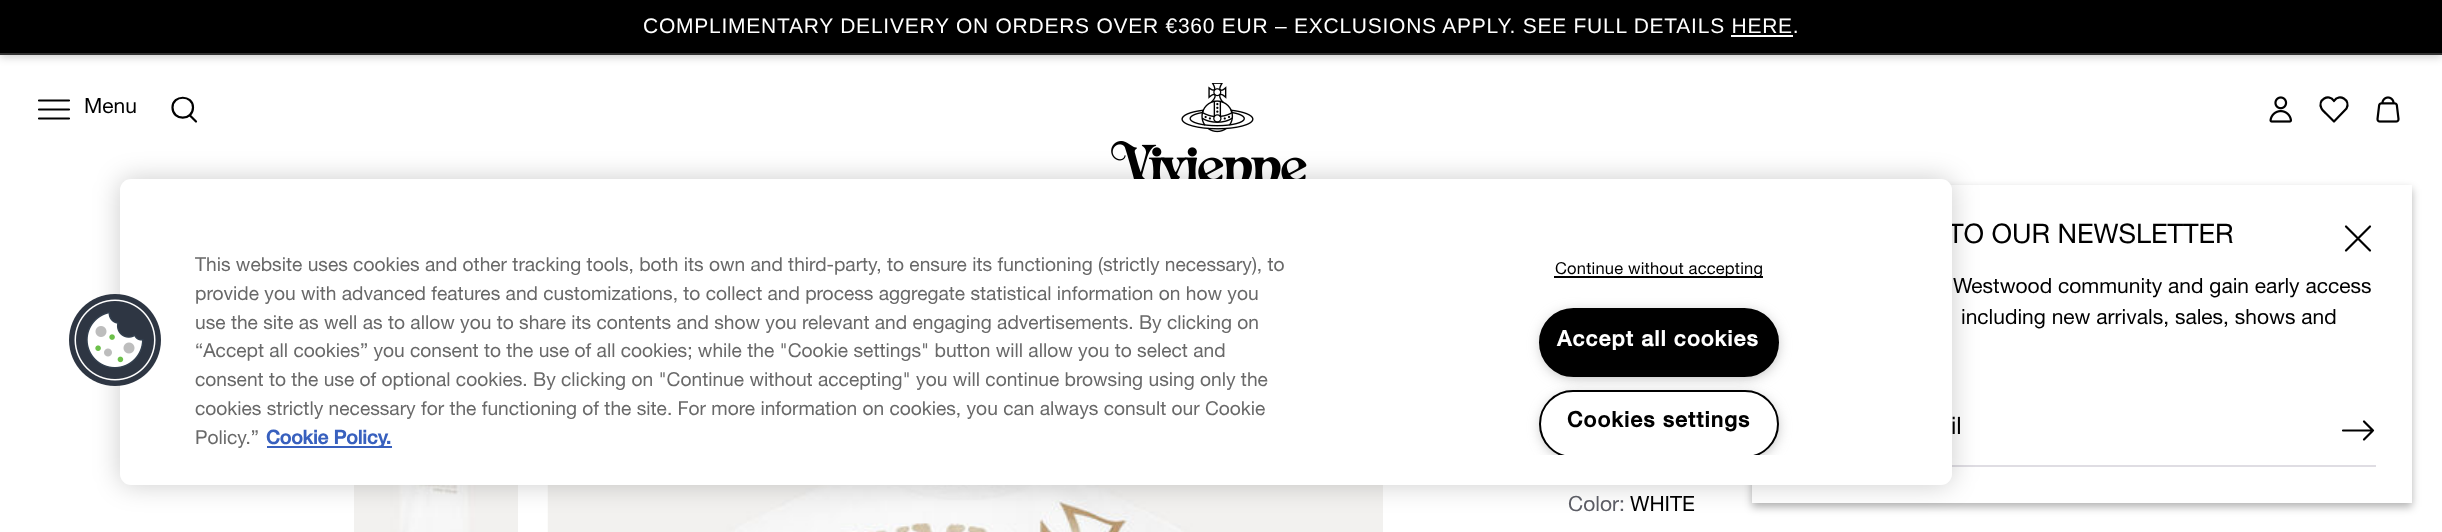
<!DOCTYPE html>
<meta charset="utf-8">
<style>body { margin: 0 } canvas { display: block }</style>
<canvas id="canvas" width="2442" height="532"></canvas>
<script type="module">
  const canvas = document.getElementById("canvas");
  const ctx = canvas.getContext("2d");
  ctx.miterLimit = 4;
  ctx.fontKerning = "normal";
  async function loadImage(src) {
    const img = new Image();
    img.src = src;
    await img.decode();
    return img;
  }

  ctx.fillStyle = "#ffffff";
  ctx.fillRect(0, 0, 2442, 532);
  ctx.fillStyle = "rgba(0, 0, 0, 0.2)";
  ctx.filter = "blur(4px)";
  ctx.beginPath();
  ctx.rect(0, 3, 2442, 54);
  ctx.fill();
  ctx.filter = "none";
  ctx.fillStyle = "#000000";
  ctx.fillRect(0, 0, 2442, 53);
  ctx.fillStyle = "#333333";
  ctx.fillRect(0, 53, 2442, 2);
  ctx.letterSpacing = "0.75px";
  ctx.font = "21px Liberation Sans";
  ctx.fillStyle = "#ffffff";
  ctx.fillText("COMPLIMENTARY DELIVERY ON ORDERS OVER €360 EUR – EXCLUSIONS APPLY. SEE FULL DETAILS HERE.", 643, 33);
  ctx.fillRect(1731, 35, 62, 2);
  ctx.beginPath();
  ctx.moveTo(69, 100.5);
  ctx.lineTo(39, 100.5);
  ctx.moveTo(69, 109.5);
  ctx.lineTo(39, 109.5);
  ctx.moveTo(69, 118.5);
  ctx.lineTo(39, 118.5);
  ctx.strokeStyle = "#000000";
  ctx.lineWidth = 2.2;
  ctx.lineCap = "round";
  ctx.lineJoin = "round";
  ctx.stroke();
  ctx.letterSpacing = "0px";
  ctx.font = "21px Helvetica Neue";
  ctx.fillStyle = "#000000";
  ctx.fillText("Menu", 84, 113);
  ctx.beginPath();
  ctx.moveTo(196, 121.5);
  ctx.lineTo(189.5, 115);
  ctx.moveTo(193, 107.5);
  ctx.bezierCurveTo(193, 121, 172.5, 121, 172.5, 107.5);
  ctx.bezierCurveTo(172.5, 94.5, 193, 94.5, 193, 107.5);
  ctx.closePath();
  ctx.stroke();
  ctx.drawImage(await loadImage("img1.png"), 1111, 83, 196, 96);
  ctx.drawImage(await loadImage("img2.png"), 2269, 96, 23, 27);
  ctx.beginPath();
  ctx.moveTo(2334, 101);
  ctx.bezierCurveTo(2329, 93, 2317, 100, 2321.5, 108.5);
  ctx.bezierCurveTo(2322.5, 110.5, 2324.5, 112, 2326, 113.5);
  ctx.lineTo(2334, 121.5);
  ctx.lineTo(2346.5, 108.5);
  ctx.bezierCurveTo(2351, 100, 2339, 93, 2334, 101);
  ctx.closePath();
  ctx.stroke();
  ctx.drawImage(await loadImage("img3.png"), 2376, 96, 24, 27);
  ctx.fillStyle = "rgba(0, 0, 0, 0.3)";
  ctx.filter = "blur(4px)";
  ctx.beginPath();
  ctx.rect(1752, 189, 660, 318);
  ctx.fill();
  ctx.filter = "none";
  ctx.fillStyle = "#ffffff";
  ctx.fillRect(1752, 185, 660, 318);
  ctx.fillStyle = "#dfdde3";
  ctx.fillRect(1952, 465, 424, 2);
  ctx.fillStyle = "#f2f1ef";
  ctx.fillRect(354, 485, 164, 47);
  ctx.drawImage(await loadImage("img5.png"), 381, 485, 104, 47);
  ctx.drawImage(await loadImage("img6.png"), 547, 485, 836, 47);
  ctx.fillStyle = "rgba(0, 0, 0, 0.2)";
  ctx.filter = "blur(13.5px)";
  ctx.beginPath();
  ctx.roundRect(120, 179, 1832, 306, 11);
  ctx.fill();
  ctx.filter = "none";
  ctx.font = "27px Helvetica Neue";
  ctx.fillStyle = "#000000";
  ctx.fillText("TO OUR NEWSLETTER", 1948, 243);
  ctx.fillStyle = "#ffffff";
  ctx.beginPath();
  ctx.roundRect(120, 179, 1832, 306, 11);
  ctx.fill();
  ctx.drawImage(await loadImage("img4.png"), 69, 294, 92, 92);
  ctx.font = "19.2px Helvetica Neue";
  ctx.fillStyle = "#696969";
  ctx.fillText("This website uses cookies and other tracking tools, both its own and third-party, to ensure its functioning (strictly necessary), to", 195, 271);
  ctx.fillText("provide you with advanced features and customizations, to collect and process aggregate statistical information on how you", 195, 300);
  ctx.fillText("use the site as well as to allow you to share its contents and show you relevant and engaging advertisements. By clicking on", 195, 329);
  ctx.fillText("“Accept all cookies” you consent to the use of all cookies; while the \"Cookie settings\" button will allow you to select and", 195, 357);
  ctx.fillText("consent to the use of optional cookies. By clicking on \"Continue without accepting\" you will continue browsing using only the", 195, 386);
  ctx.fillText("cookies strictly necessary for the functioning of the site. For more information on cookies, you can always consult our Cookie", 195, 415);
  ctx.fillText("Policy.”", 195, 444);
  ctx.fillStyle = "#3860be";
  ctx.fillRect(267, 446, 125, 2);
  ctx.font = "bold 19.2px Helvetica Neue";
  ctx.fillText("Cookie Policy.", 266, 444);
  ctx.fillStyle = "#000000";
  ctx.fillRect(1554, 276, 209, 2);
  ctx.letterSpacing = "0.2px";
  ctx.font = "16.5px Helvetica Neue";
  ctx.fillText("Continue without accepting", 1555, 274);
  ctx.fillStyle = "#999999";
  ctx.filter = "blur(7.5px)";
  ctx.beginPath();
  ctx.roundRect(1544, 315, 231, 60, 30);
  ctx.fill();
  ctx.filter = "none";
  ctx.fillStyle = "#000000";
  ctx.beginPath();
  ctx.roundRect(1540, 309, 238, 67, 33.5);
  ctx.fill();
  ctx.lineWidth = 2;
  ctx.lineJoin = "miter";
  ctx.stroke();
  ctx.letterSpacing = "1.1px";
  ctx.font = "bold 21.5px Helvetica Neue";
  ctx.fillStyle = "#ffffff";
  ctx.fillText("Accept all cookies", 1557, 346);
  ctx.save();
  ctx.beginPath();
  ctx.rect(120, 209, 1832, 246);
  ctx.clip();
  ctx.fillStyle = "#999999";
  ctx.filter = "blur(7.5px)";
  ctx.beginPath();
  ctx.roundRect(1544, 398, 231, 58, 29);
  ctx.fill();
  ctx.filter = "none";
  ctx.restore();
  ctx.save();
  ctx.beginPath();
  ctx.rect(120, 209, 1832, 246);
  ctx.clip();
  ctx.beginPath();
  ctx.roundRect(1540, 391, 238, 66, 33);
  ctx.fill();
  ctx.stroke();
  ctx.restore();
  ctx.fillStyle = "#000000";
  ctx.fillText("Cookies settings", 1567, 427);
  ctx.beginPath();
  ctx.moveTo(2346, 226.5);
  ctx.lineTo(2370, 250.5);
  ctx.moveTo(2346, 250.5);
  ctx.lineTo(2370, 226.5);
  ctx.lineWidth = 2.2;
  ctx.stroke();
  ctx.letterSpacing = "0px";
  ctx.font = "21px Helvetica Neue";
  ctx.fillText("Westwood community and gain early access", 1953, 293);
  ctx.fillText("including new arrivals, sales, shows and", 1961, 324);
  ctx.font = "24px Helvetica Neue";
  ctx.fillText("il", 1951, 434);
  ctx.beginPath();
  ctx.moveTo(2373, 430.5);
  ctx.lineTo(2343, 430.5);
  ctx.moveTo(2373, 430.5);
  ctx.lineTo(2364, 421.5);
  ctx.moveTo(2373, 430.5);
  ctx.lineTo(2364, 439.5);
  ctx.lineJoin = "round";
  ctx.stroke();
  ctx.font = "21px Helvetica Neue";
  ctx.fillStyle = "#5b5c64";
  ctx.fillText("Color:", 1568, 511);
  ctx.fillStyle = "#000000";
  ctx.fillText("WHITE", 1630, 511);
</script>
